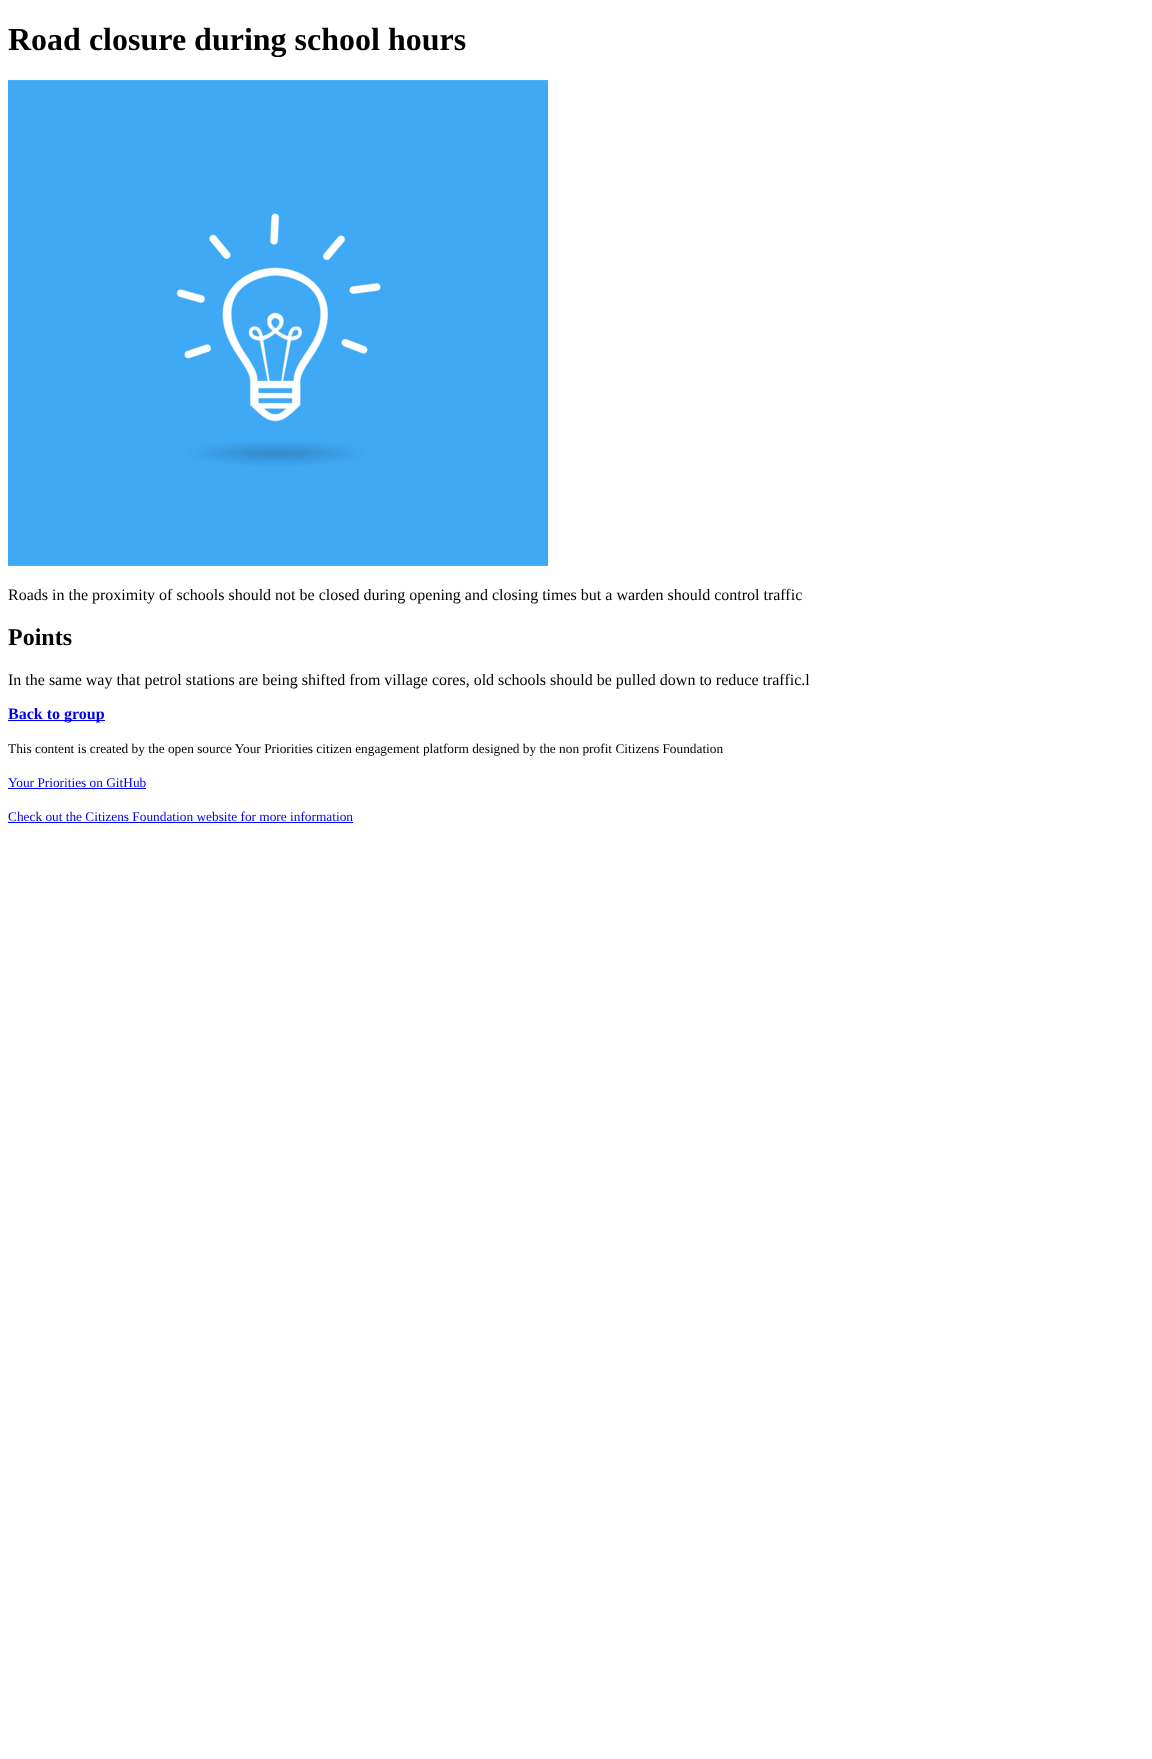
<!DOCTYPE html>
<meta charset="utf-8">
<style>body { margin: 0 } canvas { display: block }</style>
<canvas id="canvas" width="1152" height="1759"></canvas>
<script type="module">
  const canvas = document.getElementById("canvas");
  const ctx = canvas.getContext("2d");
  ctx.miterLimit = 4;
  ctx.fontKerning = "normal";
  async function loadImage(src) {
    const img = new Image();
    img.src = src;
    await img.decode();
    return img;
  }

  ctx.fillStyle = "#ffffff";
  ctx.fillRect(0, 0, 1152, 1759);
  ctx.font = "bold 32px Liberation Serif";
  ctx.fillStyle = "#000000";
  ctx.fillText("Road closure during school hours", 8, 50);
  ctx.drawImage(await loadImage("img1.png"), 8, 80, 540, 486);
  ctx.font = "16px Liberation Serif";
  ctx.fillText("Roads in the proximity of schools should not be closed during opening and closing times but a warden should control traffic", 8, 600);
  ctx.font = "bold 24px Liberation Serif";
  ctx.fillText("Points", 8, 645);
  ctx.font = "16px Liberation Serif";
  ctx.fillText("In the same way that petrol stations are being shifted from village cores, old schools should be pulled down to reduce traffic.l", 8, 685);
  ctx.fillStyle = "#0000ee";
  ctx.fillRect(8, 720, 97, 1);
  ctx.font = "bold 16px Liberation Serif";
  ctx.fillText("Back to group", 8, 719);
  ctx.font = "13.33px Liberation Serif";
  ctx.fillStyle = "#000000";
  ctx.fillText("This content is created by the open source Your Priorities citizen engagement platform designed by the non profit Citizens Foundation", 8, 753);
  ctx.fillStyle = "#0000ee";
  ctx.fillText("Your Priorities on GitHub", 8, 787);
  ctx.fillRect(8, 788, 138, 1);
  ctx.fillText("Check out the Citizens Foundation website for more information", 8, 821);
  ctx.fillRect(8, 822, 345, 1);
</script>
